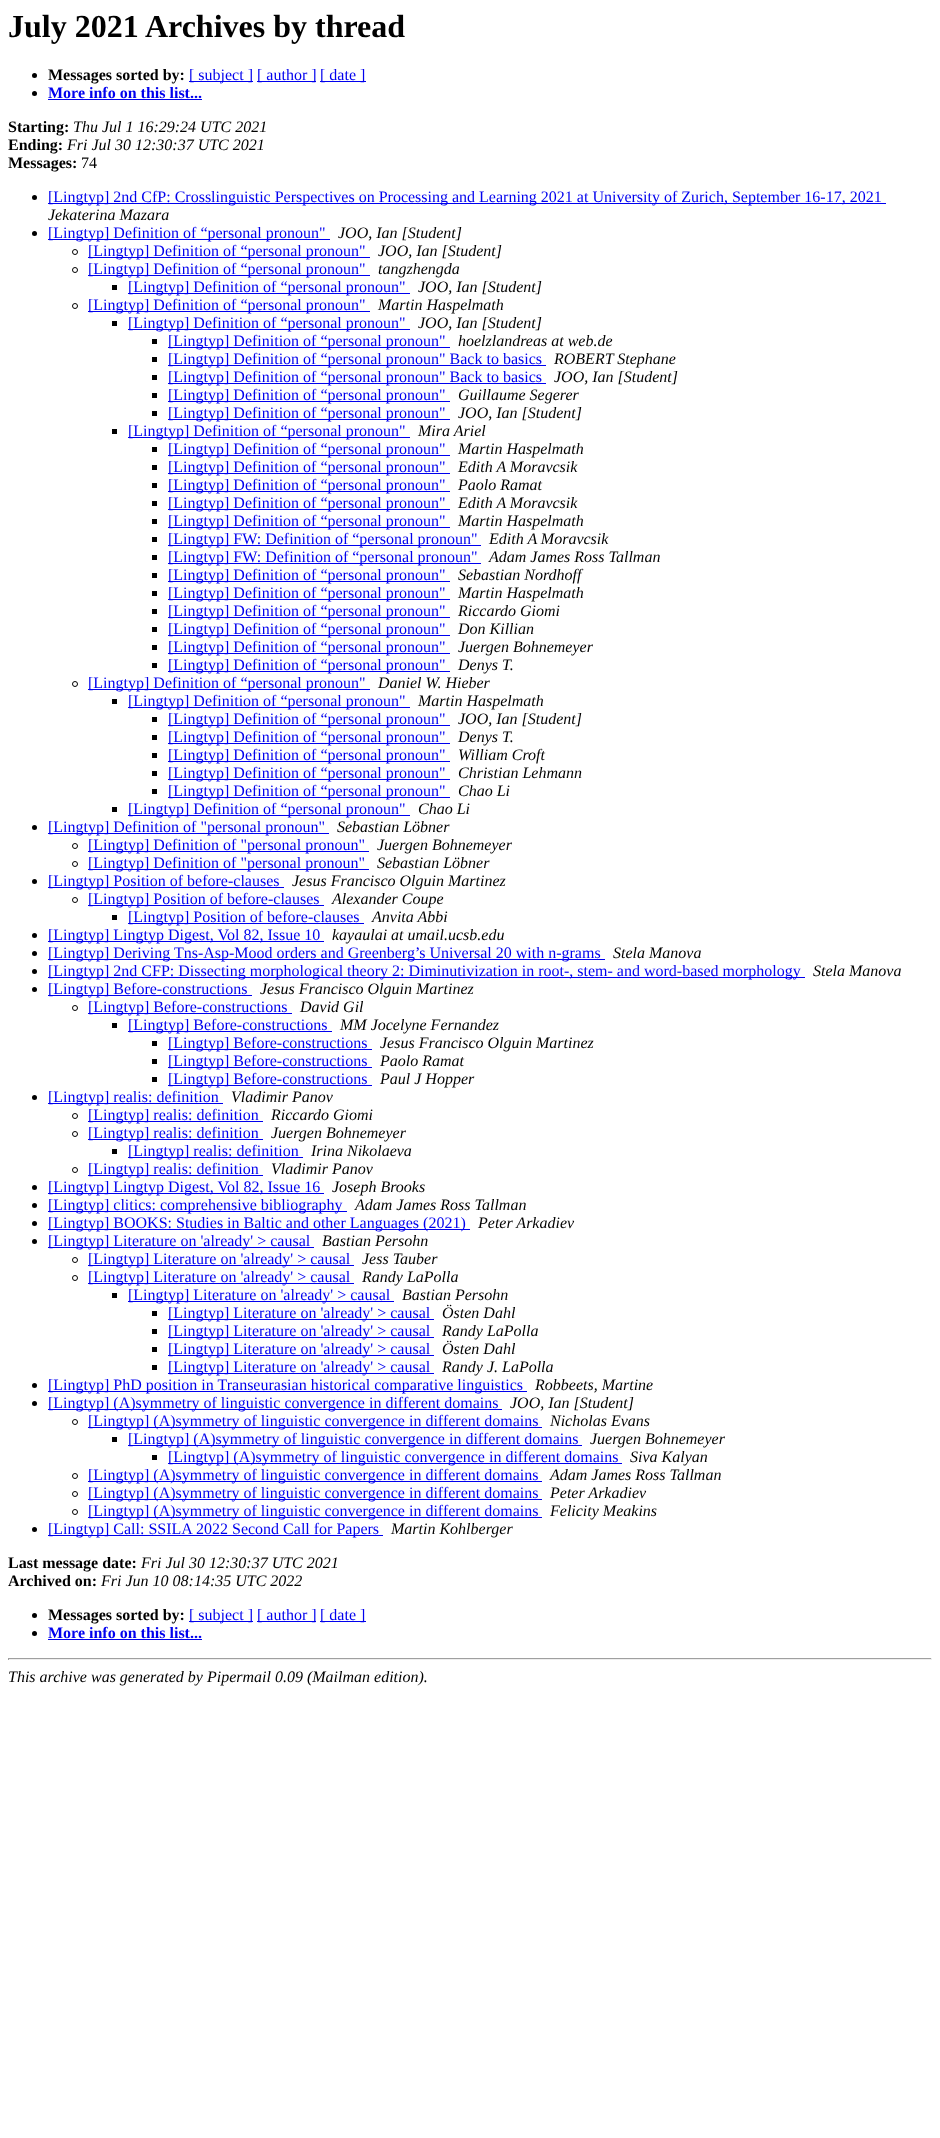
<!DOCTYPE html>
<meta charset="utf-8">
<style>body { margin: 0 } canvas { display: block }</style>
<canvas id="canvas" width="940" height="2138"></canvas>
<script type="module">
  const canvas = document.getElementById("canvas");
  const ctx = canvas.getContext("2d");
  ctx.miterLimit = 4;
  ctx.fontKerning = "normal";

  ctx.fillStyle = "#ffffff";
  ctx.fillRect(0, 0, 940, 2138);
  ctx.font = "bold 32px Liberation Serif";
  ctx.fillStyle = "#000000";
  ctx.fillText("July 2021 Archives by thread", 8, 37);
  ctx.beginPath();
  ctx.arc(34.5, 75.5, 2.5, 0, Math.PI * 2);
  ctx.fill();
  ctx.font = "bold 16px Liberation Serif";
  ctx.fillText("Messages sorted by:", 48, 80);
  ctx.fillStyle = "#0000ee";
  ctx.fillRect(189, 81, 64, 1);
  ctx.font = "16px Liberation Serif";
  ctx.fillText("[ subject ]", 189, 80);
  ctx.fillRect(257, 81, 59, 1);
  ctx.fillText("[ author ]", 257, 80);
  ctx.fillRect(320, 81, 46, 1);
  ctx.fillText("[ date ]", 320, 80);
  ctx.fillStyle = "#000000";
  ctx.beginPath();
  ctx.arc(34.5, 93.5, 2.5, 0, Math.PI * 2);
  ctx.fill();
  ctx.font = "bold 16px Liberation Serif";
  ctx.fillStyle = "#0000ee";
  ctx.fillText("More info on this list...", 48, 98);
  ctx.fillRect(48, 99, 154, 1);
  ctx.fillStyle = "#000000";
  ctx.fillText("Starting:", 8, 132);
  ctx.font = "italic 16px Liberation Serif";
  ctx.fillText("Thu Jul 1 16:29:24 UTC 2021", 73, 132);
  ctx.font = "bold 16px Liberation Serif";
  ctx.fillText("Ending:", 8, 150);
  ctx.font = "italic 16px Liberation Serif";
  ctx.fillText("Fri Jul 30 12:30:37 UTC 2021", 67, 150);
  ctx.font = "bold 16px Liberation Serif";
  ctx.fillText("Messages:", 8, 168);
  ctx.font = "16px Liberation Serif";
  ctx.fillText("74", 81, 168);
  ctx.beginPath();
  ctx.arc(34.5, 197.5, 2.5, 0, Math.PI * 2);
  ctx.fill();
  ctx.fillStyle = "#0000ee";
  ctx.fillRect(48, 203, 838, 1);
  ctx.fillText("[Lingtyp] 2nd CfP: Crosslinguistic Perspectives on Processing and Learning 2021 at University of Zurich, September 16-17, 2021", 48, 202);
  ctx.font = "italic 16px Liberation Serif";
  ctx.fillStyle = "#000000";
  ctx.fillText("Jekaterina Mazara", 48, 220);
  ctx.beginPath();
  ctx.arc(34.5, 233.5, 2.5, 0, Math.PI * 2);
  ctx.fill();
  ctx.fillStyle = "#0000ee";
  ctx.fillRect(48, 239, 282, 1);
  ctx.font = "16px Liberation Serif";
  ctx.fillText("[Lingtyp] Definition of “personal pronoun\"", 48, 238);
  ctx.font = "italic 16px Liberation Serif";
  ctx.fillStyle = "#000000";
  ctx.fillText("JOO, Ian [Student]", 338, 238);
  ctx.beginPath();
  ctx.arc(75, 252, 2.5, 0, Math.PI * 2);
  ctx.strokeStyle = "#000000";
  ctx.stroke();
  ctx.fillStyle = "#0000ee";
  ctx.fillRect(88, 257, 282, 1);
  ctx.font = "16px Liberation Serif";
  ctx.fillText("[Lingtyp] Definition of “personal pronoun\"", 88, 256);
  ctx.font = "italic 16px Liberation Serif";
  ctx.fillStyle = "#000000";
  ctx.fillText("JOO, Ian [Student]", 378, 256);
  ctx.beginPath();
  ctx.arc(75, 270, 2.5, 0, Math.PI * 2);
  ctx.stroke();
  ctx.fillStyle = "#0000ee";
  ctx.fillRect(88, 275, 282, 1);
  ctx.font = "16px Liberation Serif";
  ctx.fillText("[Lingtyp] Definition of “personal pronoun\"", 88, 274);
  ctx.font = "italic 16px Liberation Serif";
  ctx.fillStyle = "#000000";
  ctx.fillText("tangzhengda", 378, 274);
  ctx.fillRect(112, 285, 5, 5);
  ctx.fillStyle = "#0000ee";
  ctx.fillRect(128, 293, 282, 1);
  ctx.font = "16px Liberation Serif";
  ctx.fillText("[Lingtyp] Definition of “personal pronoun\"", 128, 292);
  ctx.font = "italic 16px Liberation Serif";
  ctx.fillStyle = "#000000";
  ctx.fillText("JOO, Ian [Student]", 418, 292);
  ctx.beginPath();
  ctx.arc(75, 306, 2.5, 0, Math.PI * 2);
  ctx.stroke();
  ctx.fillStyle = "#0000ee";
  ctx.fillRect(88, 311, 282, 1);
  ctx.font = "16px Liberation Serif";
  ctx.fillText("[Lingtyp] Definition of “personal pronoun\"", 88, 310);
  ctx.font = "italic 16px Liberation Serif";
  ctx.fillStyle = "#000000";
  ctx.fillText("Martin Haspelmath", 378, 310);
  ctx.fillRect(112, 321, 5, 5);
  ctx.fillStyle = "#0000ee";
  ctx.fillRect(128, 329, 282, 1);
  ctx.font = "16px Liberation Serif";
  ctx.fillText("[Lingtyp] Definition of “personal pronoun\"", 128, 328);
  ctx.font = "italic 16px Liberation Serif";
  ctx.fillStyle = "#000000";
  ctx.fillText("JOO, Ian [Student]", 418, 328);
  ctx.fillRect(152, 339, 5, 5);
  ctx.fillStyle = "#0000ee";
  ctx.fillRect(168, 347, 282, 1);
  ctx.font = "16px Liberation Serif";
  ctx.fillText("[Lingtyp] Definition of “personal pronoun\"", 168, 346);
  ctx.font = "italic 16px Liberation Serif";
  ctx.fillStyle = "#000000";
  ctx.fillText("hoelzlandreas at web.de", 458, 346);
  ctx.fillRect(152, 357, 5, 5);
  ctx.fillStyle = "#0000ee";
  ctx.fillRect(168, 365, 378, 1);
  ctx.font = "16px Liberation Serif";
  ctx.fillText("[Lingtyp] Definition of “personal pronoun\" Back to basics", 168, 364);
  ctx.font = "italic 16px Liberation Serif";
  ctx.fillStyle = "#000000";
  ctx.fillText("ROBERT Stephane", 554, 364);
  ctx.fillRect(152, 375, 5, 5);
  ctx.fillStyle = "#0000ee";
  ctx.fillRect(168, 383, 378, 1);
  ctx.font = "16px Liberation Serif";
  ctx.fillText("[Lingtyp] Definition of “personal pronoun\" Back to basics", 168, 382);
  ctx.font = "italic 16px Liberation Serif";
  ctx.fillStyle = "#000000";
  ctx.fillText("JOO, Ian [Student]", 554, 382);
  ctx.fillRect(152, 393, 5, 5);
  ctx.fillStyle = "#0000ee";
  ctx.fillRect(168, 401, 282, 1);
  ctx.font = "16px Liberation Serif";
  ctx.fillText("[Lingtyp] Definition of “personal pronoun\"", 168, 400);
  ctx.font = "italic 16px Liberation Serif";
  ctx.fillStyle = "#000000";
  ctx.fillText("Guillaume Segerer", 458, 400);
  ctx.fillRect(152, 411, 5, 5);
  ctx.fillStyle = "#0000ee";
  ctx.fillRect(168, 419, 282, 1);
  ctx.font = "16px Liberation Serif";
  ctx.fillText("[Lingtyp] Definition of “personal pronoun\"", 168, 418);
  ctx.font = "italic 16px Liberation Serif";
  ctx.fillStyle = "#000000";
  ctx.fillText("JOO, Ian [Student]", 458, 418);
  ctx.fillRect(112, 429, 5, 5);
  ctx.fillStyle = "#0000ee";
  ctx.fillRect(128, 437, 282, 1);
  ctx.font = "16px Liberation Serif";
  ctx.fillText("[Lingtyp] Definition of “personal pronoun\"", 128, 436);
  ctx.font = "italic 16px Liberation Serif";
  ctx.fillStyle = "#000000";
  ctx.fillText("Mira Ariel", 418, 436);
  ctx.fillRect(152, 447, 5, 5);
  ctx.fillStyle = "#0000ee";
  ctx.fillRect(168, 455, 282, 1);
  ctx.font = "16px Liberation Serif";
  ctx.fillText("[Lingtyp] Definition of “personal pronoun\"", 168, 454);
  ctx.font = "italic 16px Liberation Serif";
  ctx.fillStyle = "#000000";
  ctx.fillText("Martin Haspelmath", 458, 454);
  ctx.fillRect(152, 465, 5, 5);
  ctx.fillStyle = "#0000ee";
  ctx.fillRect(168, 473, 282, 1);
  ctx.font = "16px Liberation Serif";
  ctx.fillText("[Lingtyp] Definition of “personal pronoun\"", 168, 472);
  ctx.font = "italic 16px Liberation Serif";
  ctx.fillStyle = "#000000";
  ctx.fillText("Edith A Moravcsik", 458, 472);
  ctx.fillRect(152, 483, 5, 5);
  ctx.fillStyle = "#0000ee";
  ctx.fillRect(168, 491, 282, 1);
  ctx.font = "16px Liberation Serif";
  ctx.fillText("[Lingtyp] Definition of “personal pronoun\"", 168, 490);
  ctx.font = "italic 16px Liberation Serif";
  ctx.fillStyle = "#000000";
  ctx.fillText("Paolo Ramat", 458, 490);
  ctx.fillRect(152, 501, 5, 5);
  ctx.fillStyle = "#0000ee";
  ctx.fillRect(168, 509, 282, 1);
  ctx.font = "16px Liberation Serif";
  ctx.fillText("[Lingtyp] Definition of “personal pronoun\"", 168, 508);
  ctx.font = "italic 16px Liberation Serif";
  ctx.fillStyle = "#000000";
  ctx.fillText("Edith A Moravcsik", 458, 508);
  ctx.fillRect(152, 519, 5, 5);
  ctx.fillStyle = "#0000ee";
  ctx.fillRect(168, 527, 282, 1);
  ctx.font = "16px Liberation Serif";
  ctx.fillText("[Lingtyp] Definition of “personal pronoun\"", 168, 526);
  ctx.font = "italic 16px Liberation Serif";
  ctx.fillStyle = "#000000";
  ctx.fillText("Martin Haspelmath", 458, 526);
  ctx.fillRect(152, 537, 5, 5);
  ctx.fillStyle = "#0000ee";
  ctx.fillRect(168, 545, 313, 1);
  ctx.font = "16px Liberation Serif";
  ctx.fillText("[Lingtyp] FW: Definition of “personal pronoun\"", 168, 544);
  ctx.font = "italic 16px Liberation Serif";
  ctx.fillStyle = "#000000";
  ctx.fillText("Edith A Moravcsik", 489, 544);
  ctx.fillRect(152, 555, 5, 5);
  ctx.fillStyle = "#0000ee";
  ctx.fillRect(168, 563, 313, 1);
  ctx.font = "16px Liberation Serif";
  ctx.fillText("[Lingtyp] FW: Definition of “personal pronoun\"", 168, 562);
  ctx.font = "italic 16px Liberation Serif";
  ctx.fillStyle = "#000000";
  ctx.fillText("Adam James Ross Tallman", 489, 562);
  ctx.fillRect(152, 573, 5, 5);
  ctx.fillStyle = "#0000ee";
  ctx.fillRect(168, 581, 282, 1);
  ctx.font = "16px Liberation Serif";
  ctx.fillText("[Lingtyp] Definition of “personal pronoun\"", 168, 580);
  ctx.font = "italic 16px Liberation Serif";
  ctx.fillStyle = "#000000";
  ctx.fillText("Sebastian Nordhoff", 458, 580);
  ctx.fillRect(152, 591, 5, 5);
  ctx.fillStyle = "#0000ee";
  ctx.fillRect(168, 599, 282, 1);
  ctx.font = "16px Liberation Serif";
  ctx.fillText("[Lingtyp] Definition of “personal pronoun\"", 168, 598);
  ctx.font = "italic 16px Liberation Serif";
  ctx.fillStyle = "#000000";
  ctx.fillText("Martin Haspelmath", 458, 598);
  ctx.fillRect(152, 609, 5, 5);
  ctx.fillStyle = "#0000ee";
  ctx.fillRect(168, 617, 282, 1);
  ctx.font = "16px Liberation Serif";
  ctx.fillText("[Lingtyp] Definition of “personal pronoun\"", 168, 616);
  ctx.font = "italic 16px Liberation Serif";
  ctx.fillStyle = "#000000";
  ctx.fillText("Riccardo Giomi", 458, 616);
  ctx.fillRect(152, 627, 5, 5);
  ctx.fillStyle = "#0000ee";
  ctx.fillRect(168, 635, 282, 1);
  ctx.font = "16px Liberation Serif";
  ctx.fillText("[Lingtyp] Definition of “personal pronoun\"", 168, 634);
  ctx.font = "italic 16px Liberation Serif";
  ctx.fillStyle = "#000000";
  ctx.fillText("Don Killian", 458, 634);
  ctx.fillRect(152, 645, 5, 5);
  ctx.fillStyle = "#0000ee";
  ctx.fillRect(168, 653, 282, 1);
  ctx.font = "16px Liberation Serif";
  ctx.fillText("[Lingtyp] Definition of “personal pronoun\"", 168, 652);
  ctx.font = "italic 16px Liberation Serif";
  ctx.fillStyle = "#000000";
  ctx.fillText("Juergen Bohnemeyer", 458, 652);
  ctx.fillRect(152, 663, 5, 5);
  ctx.fillStyle = "#0000ee";
  ctx.fillRect(168, 671, 282, 1);
  ctx.font = "16px Liberation Serif";
  ctx.fillText("[Lingtyp] Definition of “personal pronoun\"", 168, 670);
  ctx.font = "italic 16px Liberation Serif";
  ctx.fillStyle = "#000000";
  ctx.fillText("Denys T.", 458, 670);
  ctx.beginPath();
  ctx.arc(75, 684, 2.5, 0, Math.PI * 2);
  ctx.stroke();
  ctx.fillStyle = "#0000ee";
  ctx.fillRect(88, 689, 282, 1);
  ctx.font = "16px Liberation Serif";
  ctx.fillText("[Lingtyp] Definition of “personal pronoun\"", 88, 688);
  ctx.font = "italic 16px Liberation Serif";
  ctx.fillStyle = "#000000";
  ctx.fillText("Daniel W. Hieber", 378, 688);
  ctx.fillRect(112, 699, 5, 5);
  ctx.fillStyle = "#0000ee";
  ctx.fillRect(128, 707, 282, 1);
  ctx.font = "16px Liberation Serif";
  ctx.fillText("[Lingtyp] Definition of “personal pronoun\"", 128, 706);
  ctx.font = "italic 16px Liberation Serif";
  ctx.fillStyle = "#000000";
  ctx.fillText("Martin Haspelmath", 418, 706);
  ctx.fillRect(152, 717, 5, 5);
  ctx.fillStyle = "#0000ee";
  ctx.fillRect(168, 725, 282, 1);
  ctx.font = "16px Liberation Serif";
  ctx.fillText("[Lingtyp] Definition of “personal pronoun\"", 168, 724);
  ctx.font = "italic 16px Liberation Serif";
  ctx.fillStyle = "#000000";
  ctx.fillText("JOO, Ian [Student]", 458, 724);
  ctx.fillRect(152, 735, 5, 5);
  ctx.fillStyle = "#0000ee";
  ctx.fillRect(168, 743, 282, 1);
  ctx.font = "16px Liberation Serif";
  ctx.fillText("[Lingtyp] Definition of “personal pronoun\"", 168, 742);
  ctx.font = "italic 16px Liberation Serif";
  ctx.fillStyle = "#000000";
  ctx.fillText("Denys T.", 458, 742);
  ctx.fillRect(152, 753, 5, 5);
  ctx.fillStyle = "#0000ee";
  ctx.fillRect(168, 761, 282, 1);
  ctx.font = "16px Liberation Serif";
  ctx.fillText("[Lingtyp] Definition of “personal pronoun\"", 168, 760);
  ctx.font = "italic 16px Liberation Serif";
  ctx.fillStyle = "#000000";
  ctx.fillText("William Croft", 458, 760);
  ctx.fillRect(152, 771, 5, 5);
  ctx.fillStyle = "#0000ee";
  ctx.fillRect(168, 779, 282, 1);
  ctx.font = "16px Liberation Serif";
  ctx.fillText("[Lingtyp] Definition of “personal pronoun\"", 168, 778);
  ctx.font = "italic 16px Liberation Serif";
  ctx.fillStyle = "#000000";
  ctx.fillText("Christian Lehmann", 458, 778);
  ctx.fillRect(152, 789, 5, 5);
  ctx.fillStyle = "#0000ee";
  ctx.fillRect(168, 797, 282, 1);
  ctx.font = "16px Liberation Serif";
  ctx.fillText("[Lingtyp] Definition of “personal pronoun\"", 168, 796);
  ctx.font = "italic 16px Liberation Serif";
  ctx.fillStyle = "#000000";
  ctx.fillText("Chao Li", 458, 796);
  ctx.fillRect(112, 807, 5, 5);
  ctx.fillStyle = "#0000ee";
  ctx.fillRect(128, 815, 282, 1);
  ctx.font = "16px Liberation Serif";
  ctx.fillText("[Lingtyp] Definition of “personal pronoun\"", 128, 814);
  ctx.font = "italic 16px Liberation Serif";
  ctx.fillStyle = "#000000";
  ctx.fillText("Chao Li", 418, 814);
  ctx.beginPath();
  ctx.arc(34.5, 827.5, 2.5, 0, Math.PI * 2);
  ctx.fill();
  ctx.fillStyle = "#0000ee";
  ctx.fillRect(48, 833, 281, 1);
  ctx.font = "16px Liberation Serif";
  ctx.fillText("[Lingtyp] Definition of \"personal pronoun\"", 48, 832);
  ctx.font = "italic 16px Liberation Serif";
  ctx.fillStyle = "#000000";
  ctx.fillText("Sebastian Löbner", 337, 832);
  ctx.beginPath();
  ctx.arc(75, 846, 2.5, 0, Math.PI * 2);
  ctx.stroke();
  ctx.fillStyle = "#0000ee";
  ctx.fillRect(88, 851, 281, 1);
  ctx.font = "16px Liberation Serif";
  ctx.fillText("[Lingtyp] Definition of \"personal pronoun\"", 88, 850);
  ctx.font = "italic 16px Liberation Serif";
  ctx.fillStyle = "#000000";
  ctx.fillText("Juergen Bohnemeyer", 377, 850);
  ctx.beginPath();
  ctx.arc(75, 864, 2.5, 0, Math.PI * 2);
  ctx.stroke();
  ctx.fillStyle = "#0000ee";
  ctx.fillRect(88, 869, 281, 1);
  ctx.font = "16px Liberation Serif";
  ctx.fillText("[Lingtyp] Definition of \"personal pronoun\"", 88, 868);
  ctx.font = "italic 16px Liberation Serif";
  ctx.fillStyle = "#000000";
  ctx.fillText("Sebastian Löbner", 377, 868);
  ctx.beginPath();
  ctx.arc(34.5, 881.5, 2.5, 0, Math.PI * 2);
  ctx.fill();
  ctx.fillStyle = "#0000ee";
  ctx.fillRect(48, 887, 236, 1);
  ctx.font = "16px Liberation Serif";
  ctx.fillText("[Lingtyp] Position of before-clauses", 48, 886);
  ctx.font = "italic 16px Liberation Serif";
  ctx.fillStyle = "#000000";
  ctx.fillText("Jesus Francisco Olguin Martinez", 292, 886);
  ctx.beginPath();
  ctx.arc(75, 900, 2.5, 0, Math.PI * 2);
  ctx.stroke();
  ctx.fillStyle = "#0000ee";
  ctx.fillRect(88, 905, 236, 1);
  ctx.font = "16px Liberation Serif";
  ctx.fillText("[Lingtyp] Position of before-clauses", 88, 904);
  ctx.font = "italic 16px Liberation Serif";
  ctx.fillStyle = "#000000";
  ctx.fillText("Alexander Coupe", 332, 904);
  ctx.fillRect(112, 915, 5, 5);
  ctx.fillStyle = "#0000ee";
  ctx.fillRect(128, 923, 236, 1);
  ctx.font = "16px Liberation Serif";
  ctx.fillText("[Lingtyp] Position of before-clauses", 128, 922);
  ctx.font = "italic 16px Liberation Serif";
  ctx.fillStyle = "#000000";
  ctx.fillText("Anvita Abbi", 372, 922);
  ctx.beginPath();
  ctx.arc(34.5, 935.5, 2.5, 0, Math.PI * 2);
  ctx.fill();
  ctx.fillStyle = "#0000ee";
  ctx.fillRect(48, 941, 276, 1);
  ctx.font = "16px Liberation Serif";
  ctx.fillText("[Lingtyp] Lingtyp Digest, Vol 82, Issue 10", 48, 940);
  ctx.font = "italic 16px Liberation Serif";
  ctx.fillStyle = "#000000";
  ctx.fillText("kayaulai at umail.ucsb.edu", 332, 940);
  ctx.beginPath();
  ctx.arc(34.5, 953.5, 2.5, 0, Math.PI * 2);
  ctx.fill();
  ctx.fillStyle = "#0000ee";
  ctx.fillRect(48, 959, 557, 1);
  ctx.font = "16px Liberation Serif";
  ctx.fillText("[Lingtyp] Deriving Tns-Asp-Mood orders and Greenberg’s Universal 20 with n-grams", 48, 958);
  ctx.font = "italic 16px Liberation Serif";
  ctx.fillStyle = "#000000";
  ctx.fillText("Stela Manova", 613, 958);
  ctx.beginPath();
  ctx.arc(34.5, 971.5, 2.5, 0, Math.PI * 2);
  ctx.fill();
  ctx.fillStyle = "#0000ee";
  ctx.fillRect(48, 977, 757, 1);
  ctx.font = "16px Liberation Serif";
  ctx.fillText("[Lingtyp] 2nd CFP: Dissecting morphological theory 2: Diminutivization in root-, stem- and word-based morphology", 48, 976);
  ctx.font = "italic 16px Liberation Serif";
  ctx.fillStyle = "#000000";
  ctx.fillText("Stela Manova", 813, 976);
  ctx.beginPath();
  ctx.arc(34.5, 989.5, 2.5, 0, Math.PI * 2);
  ctx.fill();
  ctx.fillStyle = "#0000ee";
  ctx.fillRect(48, 995, 204, 1);
  ctx.font = "16px Liberation Serif";
  ctx.fillText("[Lingtyp] Before-constructions", 48, 994);
  ctx.font = "italic 16px Liberation Serif";
  ctx.fillStyle = "#000000";
  ctx.fillText("Jesus Francisco Olguin Martinez", 260, 994);
  ctx.beginPath();
  ctx.arc(75, 1008, 2.5, 0, Math.PI * 2);
  ctx.stroke();
  ctx.fillStyle = "#0000ee";
  ctx.fillRect(88, 1013, 204, 1);
  ctx.font = "16px Liberation Serif";
  ctx.fillText("[Lingtyp] Before-constructions", 88, 1012);
  ctx.font = "italic 16px Liberation Serif";
  ctx.fillStyle = "#000000";
  ctx.fillText("David Gil", 300, 1012);
  ctx.fillRect(112, 1023, 5, 5);
  ctx.fillStyle = "#0000ee";
  ctx.fillRect(128, 1031, 204, 1);
  ctx.font = "16px Liberation Serif";
  ctx.fillText("[Lingtyp] Before-constructions", 128, 1030);
  ctx.font = "italic 16px Liberation Serif";
  ctx.fillStyle = "#000000";
  ctx.fillText("MM Jocelyne Fernandez", 340, 1030);
  ctx.fillRect(152, 1041, 5, 5);
  ctx.fillStyle = "#0000ee";
  ctx.fillRect(168, 1049, 204, 1);
  ctx.font = "16px Liberation Serif";
  ctx.fillText("[Lingtyp] Before-constructions", 168, 1048);
  ctx.font = "italic 16px Liberation Serif";
  ctx.fillStyle = "#000000";
  ctx.fillText("Jesus Francisco Olguin Martinez", 380, 1048);
  ctx.fillRect(152, 1059, 5, 5);
  ctx.fillStyle = "#0000ee";
  ctx.fillRect(168, 1067, 204, 1);
  ctx.font = "16px Liberation Serif";
  ctx.fillText("[Lingtyp] Before-constructions", 168, 1066);
  ctx.font = "italic 16px Liberation Serif";
  ctx.fillStyle = "#000000";
  ctx.fillText("Paolo Ramat", 380, 1066);
  ctx.fillRect(152, 1077, 5, 5);
  ctx.fillStyle = "#0000ee";
  ctx.fillRect(168, 1085, 204, 1);
  ctx.font = "16px Liberation Serif";
  ctx.fillText("[Lingtyp] Before-constructions", 168, 1084);
  ctx.font = "italic 16px Liberation Serif";
  ctx.fillStyle = "#000000";
  ctx.fillText("Paul J Hopper", 380, 1084);
  ctx.beginPath();
  ctx.arc(34.5, 1097.5, 2.5, 0, Math.PI * 2);
  ctx.fill();
  ctx.fillStyle = "#0000ee";
  ctx.fillRect(48, 1103, 175, 1);
  ctx.font = "16px Liberation Serif";
  ctx.fillText("[Lingtyp] realis: definition", 48, 1102);
  ctx.font = "italic 16px Liberation Serif";
  ctx.fillStyle = "#000000";
  ctx.fillText("Vladimir Panov", 231, 1102);
  ctx.beginPath();
  ctx.arc(75, 1116, 2.5, 0, Math.PI * 2);
  ctx.stroke();
  ctx.fillStyle = "#0000ee";
  ctx.fillRect(88, 1121, 175, 1);
  ctx.font = "16px Liberation Serif";
  ctx.fillText("[Lingtyp] realis: definition", 88, 1120);
  ctx.font = "italic 16px Liberation Serif";
  ctx.fillStyle = "#000000";
  ctx.fillText("Riccardo Giomi", 271, 1120);
  ctx.beginPath();
  ctx.arc(75, 1134, 2.5, 0, Math.PI * 2);
  ctx.stroke();
  ctx.fillStyle = "#0000ee";
  ctx.fillRect(88, 1139, 175, 1);
  ctx.font = "16px Liberation Serif";
  ctx.fillText("[Lingtyp] realis: definition", 88, 1138);
  ctx.font = "italic 16px Liberation Serif";
  ctx.fillStyle = "#000000";
  ctx.fillText("Juergen Bohnemeyer", 271, 1138);
  ctx.fillRect(112, 1149, 5, 5);
  ctx.fillStyle = "#0000ee";
  ctx.fillRect(128, 1157, 175, 1);
  ctx.font = "16px Liberation Serif";
  ctx.fillText("[Lingtyp] realis: definition", 128, 1156);
  ctx.font = "italic 16px Liberation Serif";
  ctx.fillStyle = "#000000";
  ctx.fillText("Irina Nikolaeva", 311, 1156);
  ctx.beginPath();
  ctx.arc(75, 1170, 2.5, 0, Math.PI * 2);
  ctx.stroke();
  ctx.fillStyle = "#0000ee";
  ctx.fillRect(88, 1175, 175, 1);
  ctx.font = "16px Liberation Serif";
  ctx.fillText("[Lingtyp] realis: definition", 88, 1174);
  ctx.font = "italic 16px Liberation Serif";
  ctx.fillStyle = "#000000";
  ctx.fillText("Vladimir Panov", 271, 1174);
  ctx.beginPath();
  ctx.arc(34.5, 1187.5, 2.5, 0, Math.PI * 2);
  ctx.fill();
  ctx.fillStyle = "#0000ee";
  ctx.fillRect(48, 1193, 276, 1);
  ctx.font = "16px Liberation Serif";
  ctx.fillText("[Lingtyp] Lingtyp Digest, Vol 82, Issue 16", 48, 1192);
  ctx.font = "italic 16px Liberation Serif";
  ctx.fillStyle = "#000000";
  ctx.fillText("Joseph Brooks", 332, 1192);
  ctx.beginPath();
  ctx.arc(34.5, 1205.5, 2.5, 0, Math.PI * 2);
  ctx.fill();
  ctx.fillStyle = "#0000ee";
  ctx.fillRect(48, 1211, 299, 1);
  ctx.font = "16px Liberation Serif";
  ctx.fillText("[Lingtyp] clitics: comprehensive bibliography", 48, 1210);
  ctx.font = "italic 16px Liberation Serif";
  ctx.fillStyle = "#000000";
  ctx.fillText("Adam James Ross Tallman", 355, 1210);
  ctx.beginPath();
  ctx.arc(34.5, 1223.5, 2.5, 0, Math.PI * 2);
  ctx.fill();
  ctx.fillStyle = "#0000ee";
  ctx.fillRect(48, 1229, 422, 1);
  ctx.font = "16px Liberation Serif";
  ctx.fillText("[Lingtyp] BOOKS: Studies in Baltic and other Languages (2021)", 48, 1228);
  ctx.font = "italic 16px Liberation Serif";
  ctx.fillStyle = "#000000";
  ctx.fillText("Peter Arkadiev", 478, 1228);
  ctx.beginPath();
  ctx.arc(34.5, 1241.5, 2.5, 0, Math.PI * 2);
  ctx.fill();
  ctx.fillStyle = "#0000ee";
  ctx.fillRect(48, 1247, 266, 1);
  ctx.font = "16px Liberation Serif";
  ctx.fillText("[Lingtyp] Literature on 'already' > causal", 48, 1246);
  ctx.font = "italic 16px Liberation Serif";
  ctx.fillStyle = "#000000";
  ctx.fillText("Bastian Persohn", 322, 1246);
  ctx.beginPath();
  ctx.arc(75, 1260, 2.5, 0, Math.PI * 2);
  ctx.stroke();
  ctx.fillStyle = "#0000ee";
  ctx.fillRect(88, 1265, 266, 1);
  ctx.font = "16px Liberation Serif";
  ctx.fillText("[Lingtyp] Literature on 'already' > causal", 88, 1264);
  ctx.font = "italic 16px Liberation Serif";
  ctx.fillStyle = "#000000";
  ctx.fillText("Jess Tauber", 362, 1264);
  ctx.beginPath();
  ctx.arc(75, 1278, 2.5, 0, Math.PI * 2);
  ctx.stroke();
  ctx.fillStyle = "#0000ee";
  ctx.fillRect(88, 1283, 266, 1);
  ctx.font = "16px Liberation Serif";
  ctx.fillText("[Lingtyp] Literature on 'already' > causal", 88, 1282);
  ctx.font = "italic 16px Liberation Serif";
  ctx.fillStyle = "#000000";
  ctx.fillText("Randy LaPolla", 362, 1282);
  ctx.fillRect(112, 1293, 5, 5);
  ctx.fillStyle = "#0000ee";
  ctx.fillRect(128, 1301, 266, 1);
  ctx.font = "16px Liberation Serif";
  ctx.fillText("[Lingtyp] Literature on 'already' > causal", 128, 1300);
  ctx.font = "italic 16px Liberation Serif";
  ctx.fillStyle = "#000000";
  ctx.fillText("Bastian Persohn", 402, 1300);
  ctx.fillRect(152, 1311, 5, 5);
  ctx.fillStyle = "#0000ee";
  ctx.fillRect(168, 1319, 266, 1);
  ctx.font = "16px Liberation Serif";
  ctx.fillText("[Lingtyp] Literature on 'already' > causal", 168, 1318);
  ctx.font = "italic 16px Liberation Serif";
  ctx.fillStyle = "#000000";
  ctx.fillText("Östen Dahl", 442, 1318);
  ctx.fillRect(152, 1329, 5, 5);
  ctx.fillStyle = "#0000ee";
  ctx.fillRect(168, 1337, 266, 1);
  ctx.font = "16px Liberation Serif";
  ctx.fillText("[Lingtyp] Literature on 'already' > causal", 168, 1336);
  ctx.font = "italic 16px Liberation Serif";
  ctx.fillStyle = "#000000";
  ctx.fillText("Randy LaPolla", 442, 1336);
  ctx.fillRect(152, 1347, 5, 5);
  ctx.fillStyle = "#0000ee";
  ctx.fillRect(168, 1355, 266, 1);
  ctx.font = "16px Liberation Serif";
  ctx.fillText("[Lingtyp] Literature on 'already' > causal", 168, 1354);
  ctx.font = "italic 16px Liberation Serif";
  ctx.fillStyle = "#000000";
  ctx.fillText("Östen Dahl", 442, 1354);
  ctx.fillRect(152, 1365, 5, 5);
  ctx.fillStyle = "#0000ee";
  ctx.fillRect(168, 1373, 266, 1);
  ctx.font = "16px Liberation Serif";
  ctx.fillText("[Lingtyp] Literature on 'already' > causal", 168, 1372);
  ctx.font = "italic 16px Liberation Serif";
  ctx.fillStyle = "#000000";
  ctx.fillText("Randy J. LaPolla", 442, 1372);
  ctx.beginPath();
  ctx.arc(34.5, 1385.5, 2.5, 0, Math.PI * 2);
  ctx.fill();
  ctx.fillStyle = "#0000ee";
  ctx.fillRect(48, 1391, 479, 1);
  ctx.font = "16px Liberation Serif";
  ctx.fillText("[Lingtyp] PhD position in Transeurasian historical comparative linguistics", 48, 1390);
  ctx.font = "italic 16px Liberation Serif";
  ctx.fillStyle = "#000000";
  ctx.fillText("Robbeets, Martine", 535, 1390);
  ctx.beginPath();
  ctx.arc(34.5, 1403.5, 2.5, 0, Math.PI * 2);
  ctx.fill();
  ctx.fillStyle = "#0000ee";
  ctx.fillRect(48, 1409, 454, 1);
  ctx.font = "16px Liberation Serif";
  ctx.fillText("[Lingtyp] (A)symmetry of linguistic convergence in different domains", 48, 1408);
  ctx.font = "italic 16px Liberation Serif";
  ctx.fillStyle = "#000000";
  ctx.fillText("JOO, Ian [Student]", 510, 1408);
  ctx.beginPath();
  ctx.arc(75, 1422, 2.5, 0, Math.PI * 2);
  ctx.stroke();
  ctx.fillStyle = "#0000ee";
  ctx.fillRect(88, 1427, 454, 1);
  ctx.font = "16px Liberation Serif";
  ctx.fillText("[Lingtyp] (A)symmetry of linguistic convergence in different domains", 88, 1426);
  ctx.font = "italic 16px Liberation Serif";
  ctx.fillStyle = "#000000";
  ctx.fillText("Nicholas Evans", 550, 1426);
  ctx.fillRect(112, 1437, 5, 5);
  ctx.fillStyle = "#0000ee";
  ctx.fillRect(128, 1445, 454, 1);
  ctx.font = "16px Liberation Serif";
  ctx.fillText("[Lingtyp] (A)symmetry of linguistic convergence in different domains", 128, 1444);
  ctx.font = "italic 16px Liberation Serif";
  ctx.fillStyle = "#000000";
  ctx.fillText("Juergen Bohnemeyer", 590, 1444);
  ctx.fillRect(152, 1455, 5, 5);
  ctx.fillStyle = "#0000ee";
  ctx.fillRect(168, 1463, 454, 1);
  ctx.font = "16px Liberation Serif";
  ctx.fillText("[Lingtyp] (A)symmetry of linguistic convergence in different domains", 168, 1462);
  ctx.font = "italic 16px Liberation Serif";
  ctx.fillStyle = "#000000";
  ctx.fillText("Siva Kalyan", 630, 1462);
  ctx.beginPath();
  ctx.arc(75, 1476, 2.5, 0, Math.PI * 2);
  ctx.stroke();
  ctx.fillStyle = "#0000ee";
  ctx.fillRect(88, 1481, 454, 1);
  ctx.font = "16px Liberation Serif";
  ctx.fillText("[Lingtyp] (A)symmetry of linguistic convergence in different domains", 88, 1480);
  ctx.font = "italic 16px Liberation Serif";
  ctx.fillStyle = "#000000";
  ctx.fillText("Adam James Ross Tallman", 550, 1480);
  ctx.beginPath();
  ctx.arc(75, 1494, 2.5, 0, Math.PI * 2);
  ctx.stroke();
  ctx.fillStyle = "#0000ee";
  ctx.fillRect(88, 1499, 454, 1);
  ctx.font = "16px Liberation Serif";
  ctx.fillText("[Lingtyp] (A)symmetry of linguistic convergence in different domains", 88, 1498);
  ctx.font = "italic 16px Liberation Serif";
  ctx.fillStyle = "#000000";
  ctx.fillText("Peter Arkadiev", 550, 1498);
  ctx.beginPath();
  ctx.arc(75, 1512, 2.5, 0, Math.PI * 2);
  ctx.stroke();
  ctx.fillStyle = "#0000ee";
  ctx.fillRect(88, 1517, 454, 1);
  ctx.font = "16px Liberation Serif";
  ctx.fillText("[Lingtyp] (A)symmetry of linguistic convergence in different domains", 88, 1516);
  ctx.font = "italic 16px Liberation Serif";
  ctx.fillStyle = "#000000";
  ctx.fillText("Felicity Meakins", 550, 1516);
  ctx.beginPath();
  ctx.arc(34.5, 1529.5, 2.5, 0, Math.PI * 2);
  ctx.fill();
  ctx.fillStyle = "#0000ee";
  ctx.fillRect(48, 1535, 335, 1);
  ctx.font = "16px Liberation Serif";
  ctx.fillText("[Lingtyp] Call: SSILA 2022 Second Call for Papers", 48, 1534);
  ctx.font = "italic 16px Liberation Serif";
  ctx.fillStyle = "#000000";
  ctx.fillText("Martin Kohlberger", 391, 1534);
  ctx.font = "bold 16px Liberation Serif";
  ctx.fillText("Last message date:", 8, 1568);
  ctx.font = "italic 16px Liberation Serif";
  ctx.fillText("Fri Jul 30 12:30:37 UTC 2021", 141, 1568);
  ctx.font = "bold 16px Liberation Serif";
  ctx.fillText("Archived on:", 8, 1586);
  ctx.font = "italic 16px Liberation Serif";
  ctx.fillText("Fri Jun 10 08:14:35 UTC 2022", 101, 1586);
  ctx.beginPath();
  ctx.arc(34.5, 1615.5, 2.5, 0, Math.PI * 2);
  ctx.fill();
  ctx.font = "bold 16px Liberation Serif";
  ctx.fillText("Messages sorted by:", 48, 1620);
  ctx.fillStyle = "#0000ee";
  ctx.fillRect(189, 1621, 64, 1);
  ctx.font = "16px Liberation Serif";
  ctx.fillText("[ subject ]", 189, 1620);
  ctx.fillRect(257, 1621, 59, 1);
  ctx.fillText("[ author ]", 257, 1620);
  ctx.fillRect(320, 1621, 46, 1);
  ctx.fillText("[ date ]", 320, 1620);
  ctx.fillStyle = "#000000";
  ctx.beginPath();
  ctx.arc(34.5, 1633.5, 2.5, 0, Math.PI * 2);
  ctx.fill();
  ctx.font = "bold 16px Liberation Serif";
  ctx.fillStyle = "#0000ee";
  ctx.fillText("More info on this list...", 48, 1638);
  ctx.fillRect(48, 1639, 154, 1);
  ctx.fillStyle = "#9f9f9f";
  ctx.fillRect(8, 1658, 924, 1);
  ctx.fillStyle = "#eeeeee";
  ctx.fillRect(931, 1658, 1, 2);
  ctx.fillRect(8, 1659, 924, 1);
  ctx.fillStyle = "#9f9f9f";
  ctx.fillRect(8, 1658, 1, 2);
  ctx.font = "italic 16px Liberation Serif";
  ctx.fillStyle = "#000000";
  ctx.fillText("This archive was generated by Pipermail 0.09 (Mailman edition).", 8, 1682);
</script>
